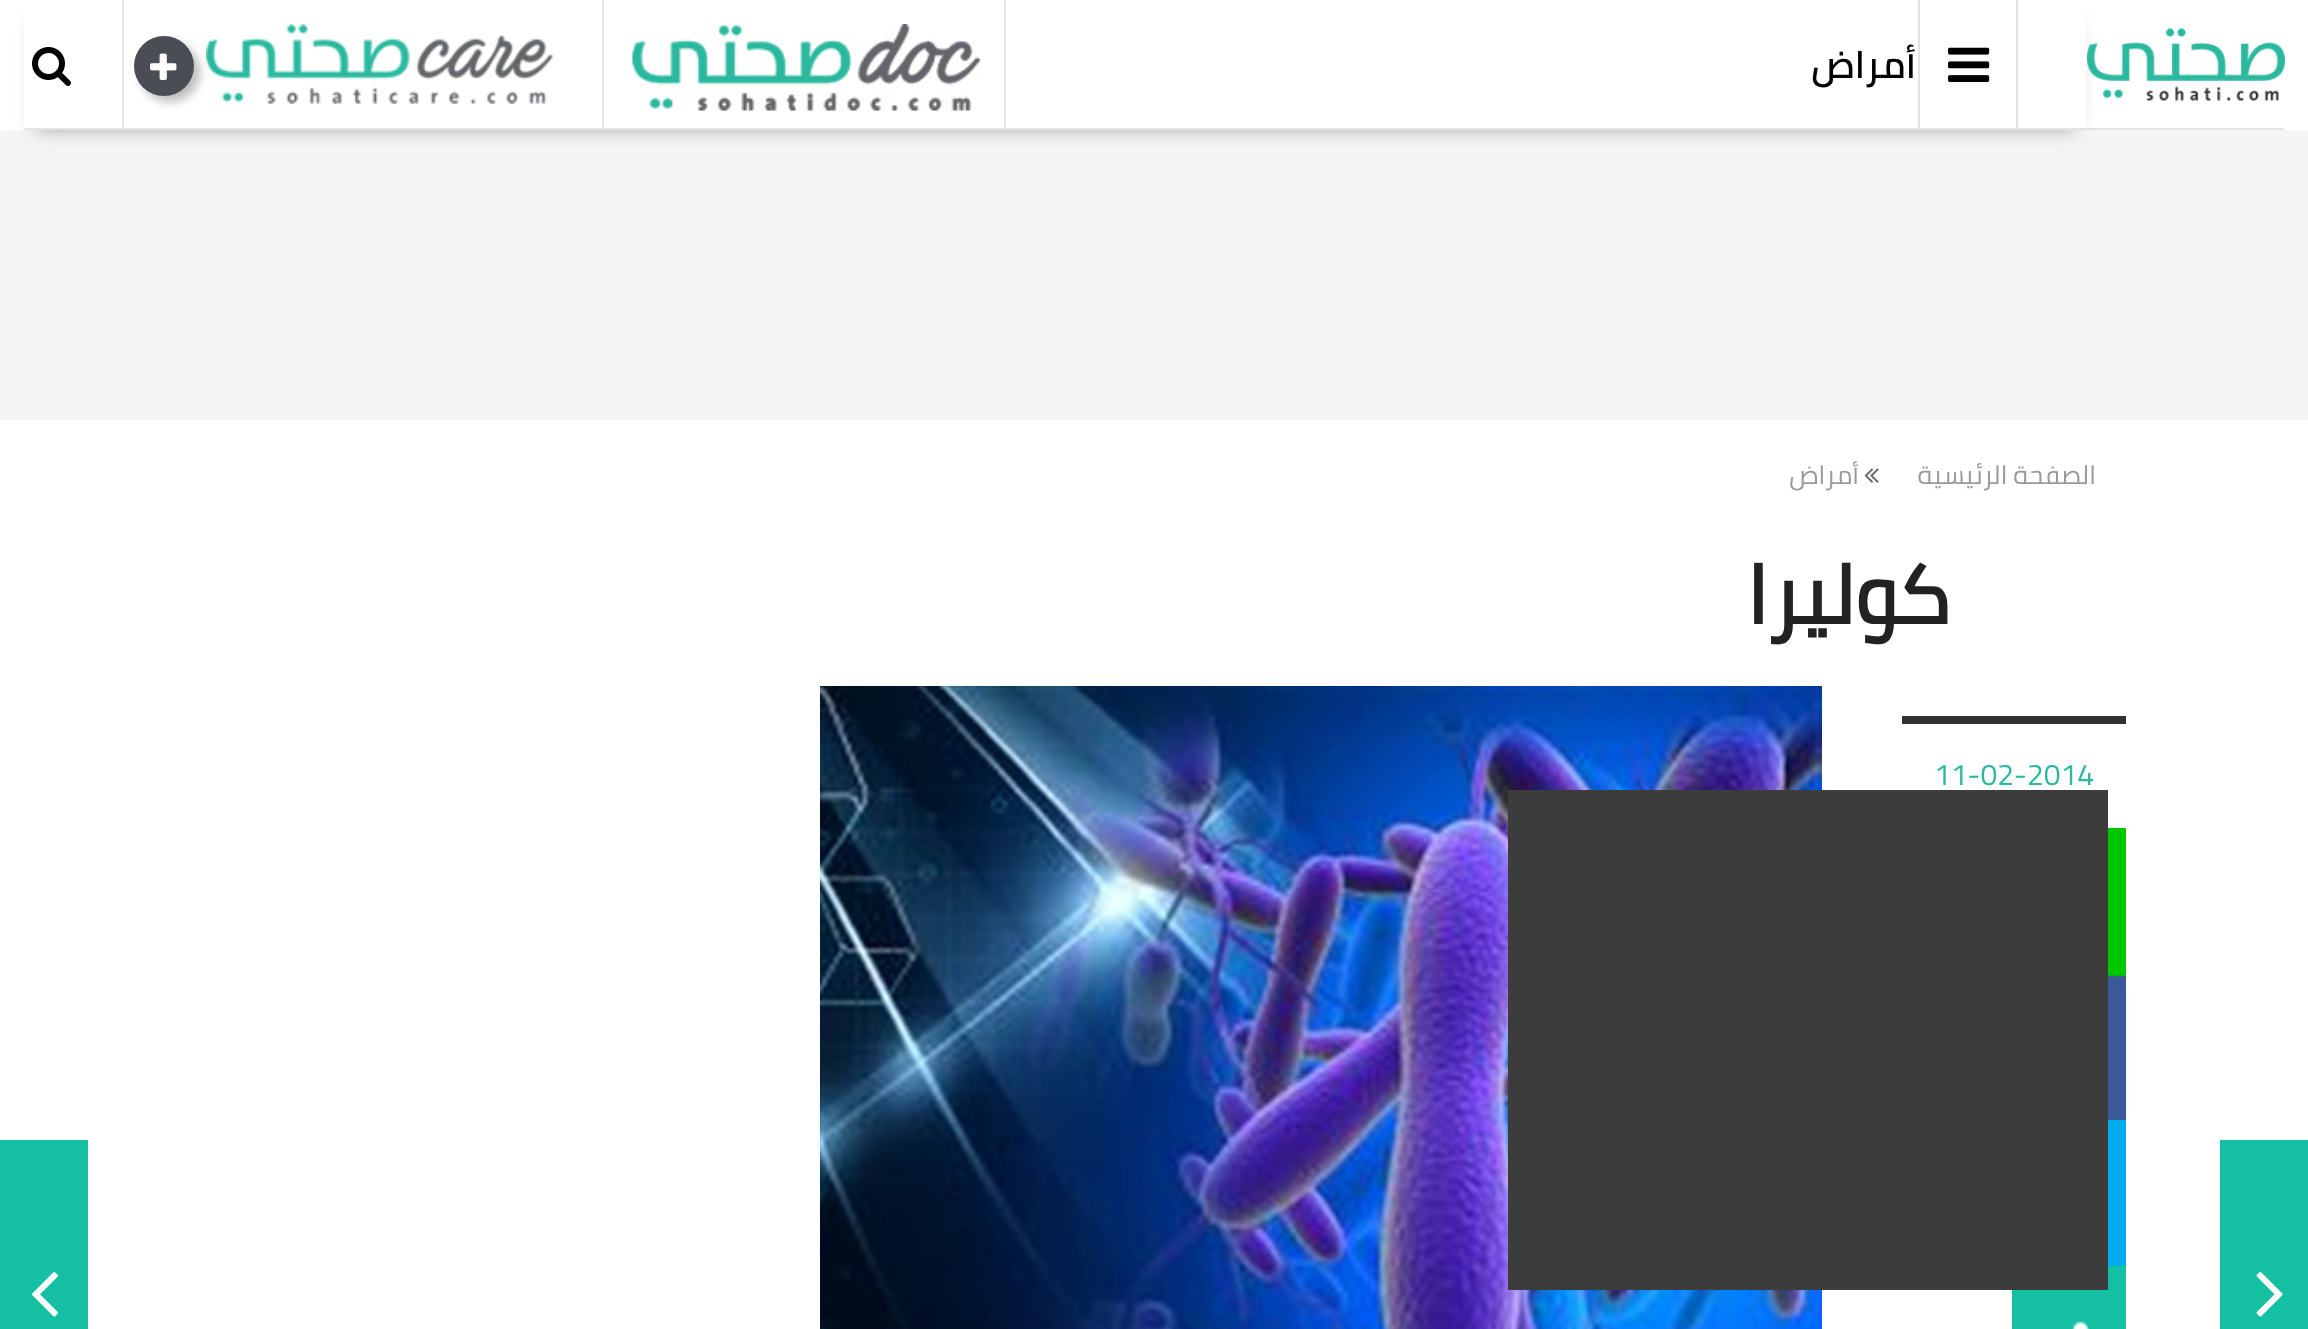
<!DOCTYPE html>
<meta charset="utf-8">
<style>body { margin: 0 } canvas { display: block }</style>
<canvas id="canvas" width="2308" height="1329"></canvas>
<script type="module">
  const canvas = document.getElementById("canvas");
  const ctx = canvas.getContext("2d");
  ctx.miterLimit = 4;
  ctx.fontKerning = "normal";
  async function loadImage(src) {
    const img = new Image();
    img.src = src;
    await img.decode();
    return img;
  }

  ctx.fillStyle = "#ffffff";
  ctx.fillRect(0, 0, 2308, 1329);
  ctx.fillStyle = "#e4e4e4";
  ctx.fillRect(2086, 128, 198, 2);
  ctx.drawImage(await loadImage("img1.png"), 2087, 28, 198, 73);
  ctx.fillStyle = "#f5f5f5";
  ctx.fillRect(0, 130, 2308, 290);
  ctx.save();
  ctx.beginPath();
  ctx.moveTo(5, 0);
  ctx.lineTo(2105, 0);
  ctx.lineTo(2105, 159);
  ctx.lineTo(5, 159);
  ctx.closePath();
  ctx.moveTo(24, 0);
  ctx.lineTo(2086, 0);
  ctx.lineTo(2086, 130);
  ctx.lineTo(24, 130);
  ctx.closePath();
  ctx.clip("evenodd");
  ctx.fillStyle = "#9a9a9a";
  ctx.filter = "blur(10px)";
  ctx.beginPath();
  ctx.rect(36, 22, 2038, 106);
  ctx.fill();
  ctx.filter = "none";
  ctx.restore();
  ctx.fillStyle = "#e4e4e4";
  ctx.fillRect(24, 128, 2062, 2);
  ctx.fillStyle = "#e2e2e2";
  ctx.fillRect(2016, 0, 2, 128);
  ctx.fillRect(1918, 0, 2, 128);
  ctx.drawImage(await loadImage("img2.png"), 1948, 47, 42, 35);
  ctx.direction = "rtl";
  ctx.font = "600 38px Cairo";
  ctx.fillStyle = "#000000";
  ctx.fillText("أمراض", 1916, 78);
  ctx.fillStyle = "#e4e4e4";
  ctx.fillRect(1004, 0, 2, 130);
  ctx.drawImage(await loadImage("img3.png"), 632, 24, 349, 87);
  ctx.fillRect(602, 0, 2, 130);
  ctx.fillStyle = "rgba(0, 0, 0, 0.26)";
  ctx.filter = "blur(5px)";
  ctx.beginPath();
  ctx.roundRect(140, 42, 60, 60, 30);
  ctx.fill();
  ctx.filter = "none";
  ctx.drawImage(await loadImage("img4.png"), 206, 24, 348, 80);
  ctx.fillStyle = "#4a4e54";
  ctx.beginPath();
  ctx.arc(164, 66, 30, 0, Math.PI * 2);
  ctx.fill();
  ctx.drawImage(await loadImage("img5.png"), 150, 53, 27, 27);
  ctx.fillStyle = "#e2e2e2";
  ctx.fillRect(122, 0, 2, 128);
  ctx.drawImage(await loadImage("img6.png"), 32, 47, 39, 39);
  ctx.font = "26px Cairo";
  ctx.fillStyle = "#999999";
  ctx.fillText("الصفحة الرئيسية", 2096, 484);
  ctx.drawImage(await loadImage("img7.png"), 1864, 468, 15, 15);
  ctx.fillText("أمراض", 1859, 484);
  ctx.font = "bold 82px Cairo";
  ctx.fillStyle = "#222222";
  ctx.fillText("كوليرا", 1950, 624);
  ctx.fillStyle = "#313131";
  ctx.fillRect(1902, 716, 224, 8);
  ctx.direction = "ltr";
  ctx.font = "30px Cairo";
  ctx.fillStyle = "#2ab89f";
  ctx.fillText("11-02-2014", 1934, 785);
  ctx.drawImage(await loadImage("img8.png"), 2108, 828, 18, 146);
  ctx.drawImage(await loadImage("img9.png"), 2108, 974, 18, 146);
  ctx.drawImage(await loadImage("img10.png"), 2108, 1120, 18, 146);
  ctx.drawImage(await loadImage("img11.png"), 2012, 1266, 114, 63);
  ctx.drawImage(await loadImage("img12.png"), 820, 686, 1002, 643);
  ctx.fillStyle = "#15bfa2";
  ctx.fillRect(2220, 1140, 88, 189);
  ctx.drawImage(await loadImage("img13.png"), 2256, 1272, 27, 45);
  ctx.fillRect(0, 1140, 88, 189);
  ctx.drawImage(await loadImage("img14.png"), 32, 1272, 26, 45);
  ctx.fillStyle = "#3c3c3c";
  ctx.fillRect(1508, 790, 600, 500);
</script>
